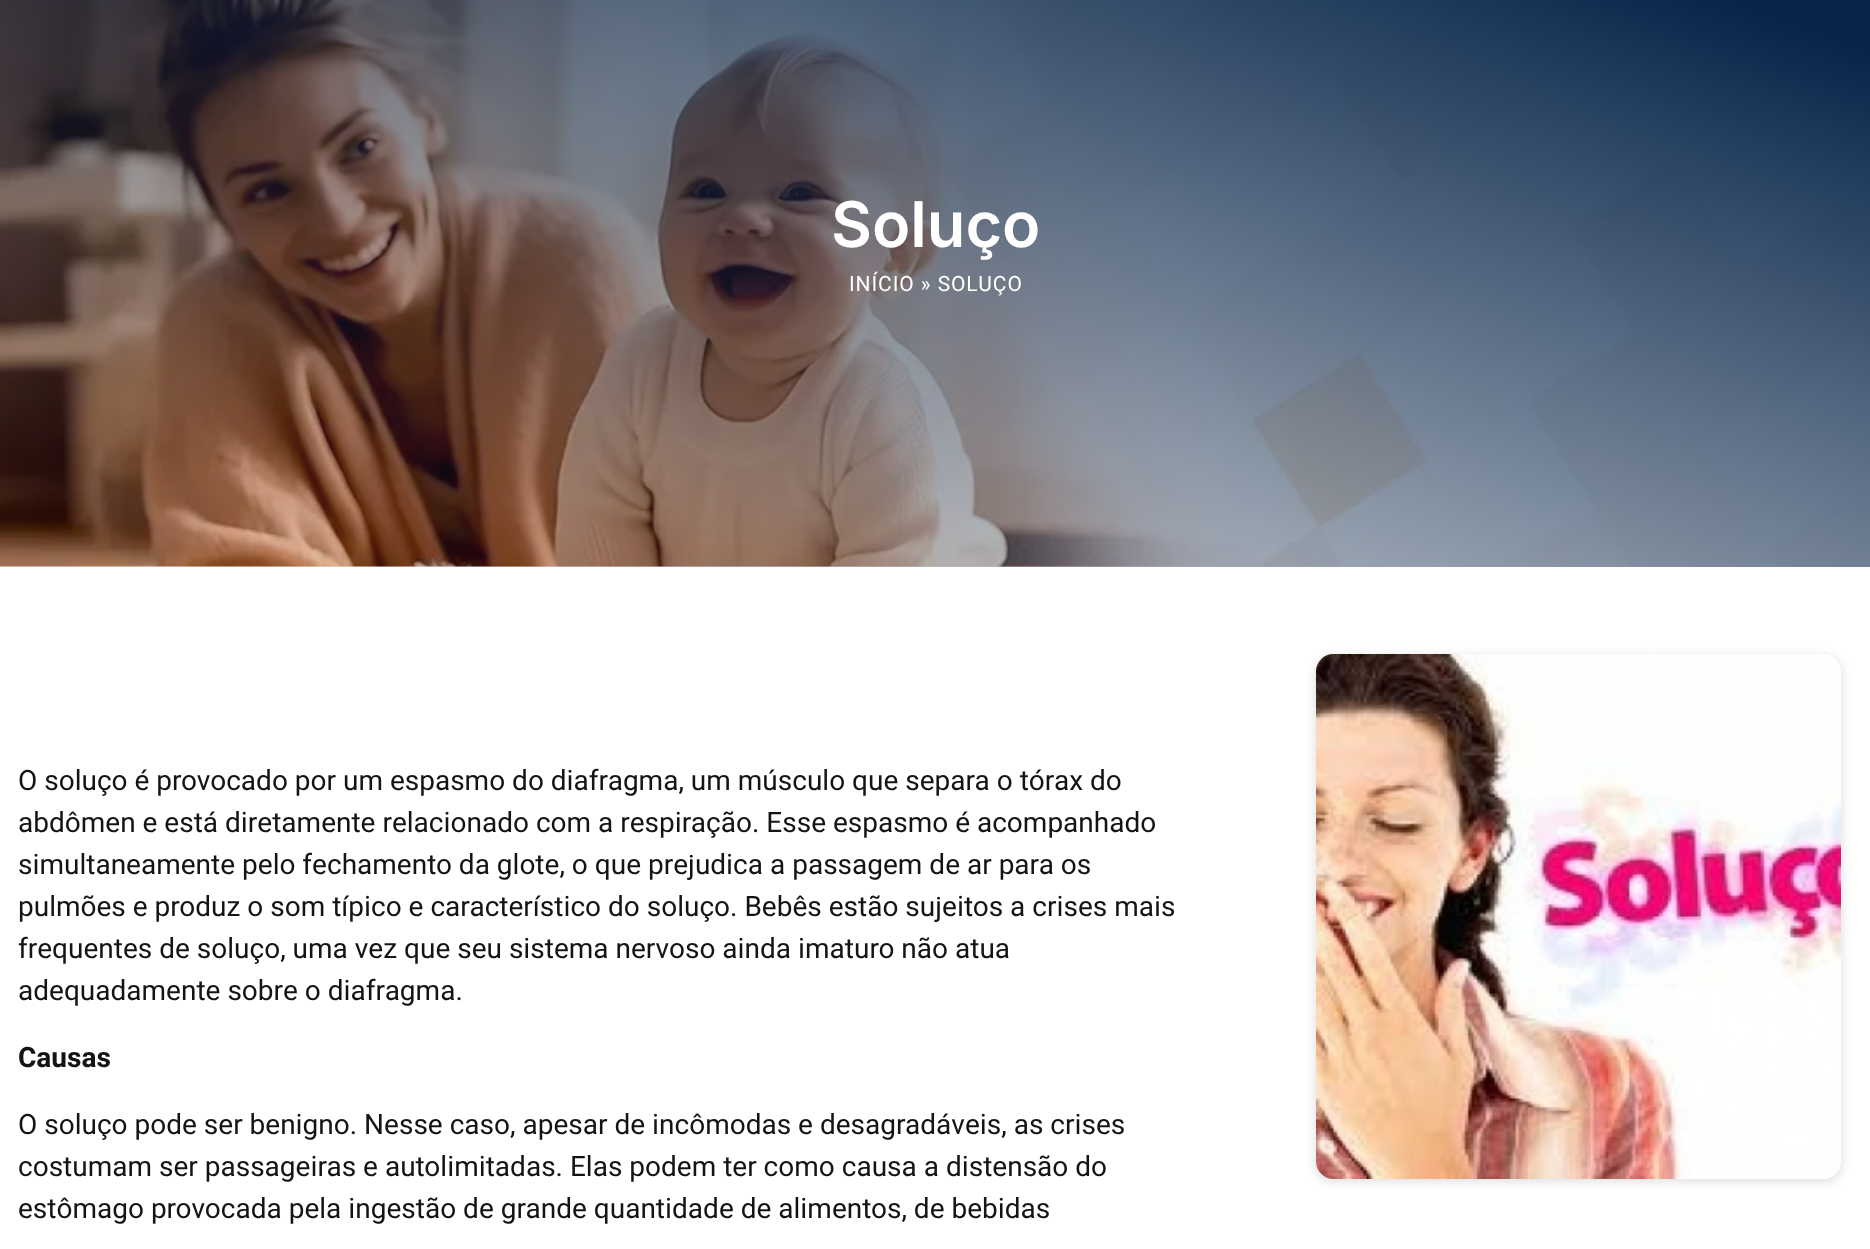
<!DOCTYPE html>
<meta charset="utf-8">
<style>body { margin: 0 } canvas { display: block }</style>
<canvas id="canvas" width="1870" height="1249"></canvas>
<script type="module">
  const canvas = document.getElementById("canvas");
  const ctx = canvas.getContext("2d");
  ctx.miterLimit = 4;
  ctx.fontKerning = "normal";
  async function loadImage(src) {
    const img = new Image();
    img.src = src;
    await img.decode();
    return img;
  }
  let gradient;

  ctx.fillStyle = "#ffffff";
  ctx.fillRect(0, 0, 1870, 1249);
  ctx.drawImage(await loadImage("img1.png"), 0, 0, 1870, 567);
  gradient = ctx.createLinearGradient(1148, -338, 723, 830);
  gradient.addColorStop(0.1, "#08264b");
  gradient.addColorStop(1, "rgba(8, 38, 75, 0)");
  ctx.fillStyle = gradient;
  ctx.fillRect(0, 0, 1870, 567);
  ctx.font = "600 63px Inter";
  ctx.fillStyle = "#ffffff";
  ctx.fillText("Soluço", 831, 247);
  ctx.letterSpacing = "0.9px";
  ctx.font = "21px Heebo";
  ctx.fillText("INÍCIO » SOLUÇO", 849, 291);
  ctx.letterSpacing = "0px";
  ctx.font = "28px Heebo";
  ctx.fillStyle = "#141414";
  ctx.fillText("O soluço é provocado por um espasmo do diafragma, um músculo que separa o tórax do", 18, 790);
  ctx.fillText("abdômen e está diretamente relacionado com a respiração. Esse espasmo é acompanhado", 18, 832);
  ctx.fillText("simultaneamente pelo fechamento da glote, o que prejudica a passagem de ar para os", 18, 874);
  ctx.fillText("pulmões e produz o som típico e característico do soluço. Bebês estão sujeitos a crises mais", 18, 916);
  ctx.fillText("frequentes de soluço, uma vez que seu sistema nervoso ainda imaturo não atua", 18, 958);
  ctx.fillText("adequadamente sobre o diafragma.", 18, 1000);
  ctx.font = "bold 28px Heebo";
  ctx.fillText("Causas", 18, 1067);
  ctx.font = "28px Heebo";
  ctx.fillText("O soluço pode ser benigno. Nesse caso, apesar de incômodas e desagradáveis, as crises", 18, 1134);
  ctx.fillText("costumam ser passageiras e autolimitadas. Elas podem ter como causa a distensão do", 18, 1176);
  ctx.fillText("estômago provocada pela ingestão de grande quantidade de alimentos, de bebidas", 18, 1218);
  ctx.fillStyle = "rgba(0, 0, 0, 0.1)";
  ctx.filter = "blur(4.5px)";
  ctx.beginPath();
  ctx.roundRect(1314, 655, 529, 528, 19);
  ctx.fill();
  ctx.filter = "none";
  ctx.drawImage(await loadImage("img2.png"), 1316, 654, 525, 525);
</script>
